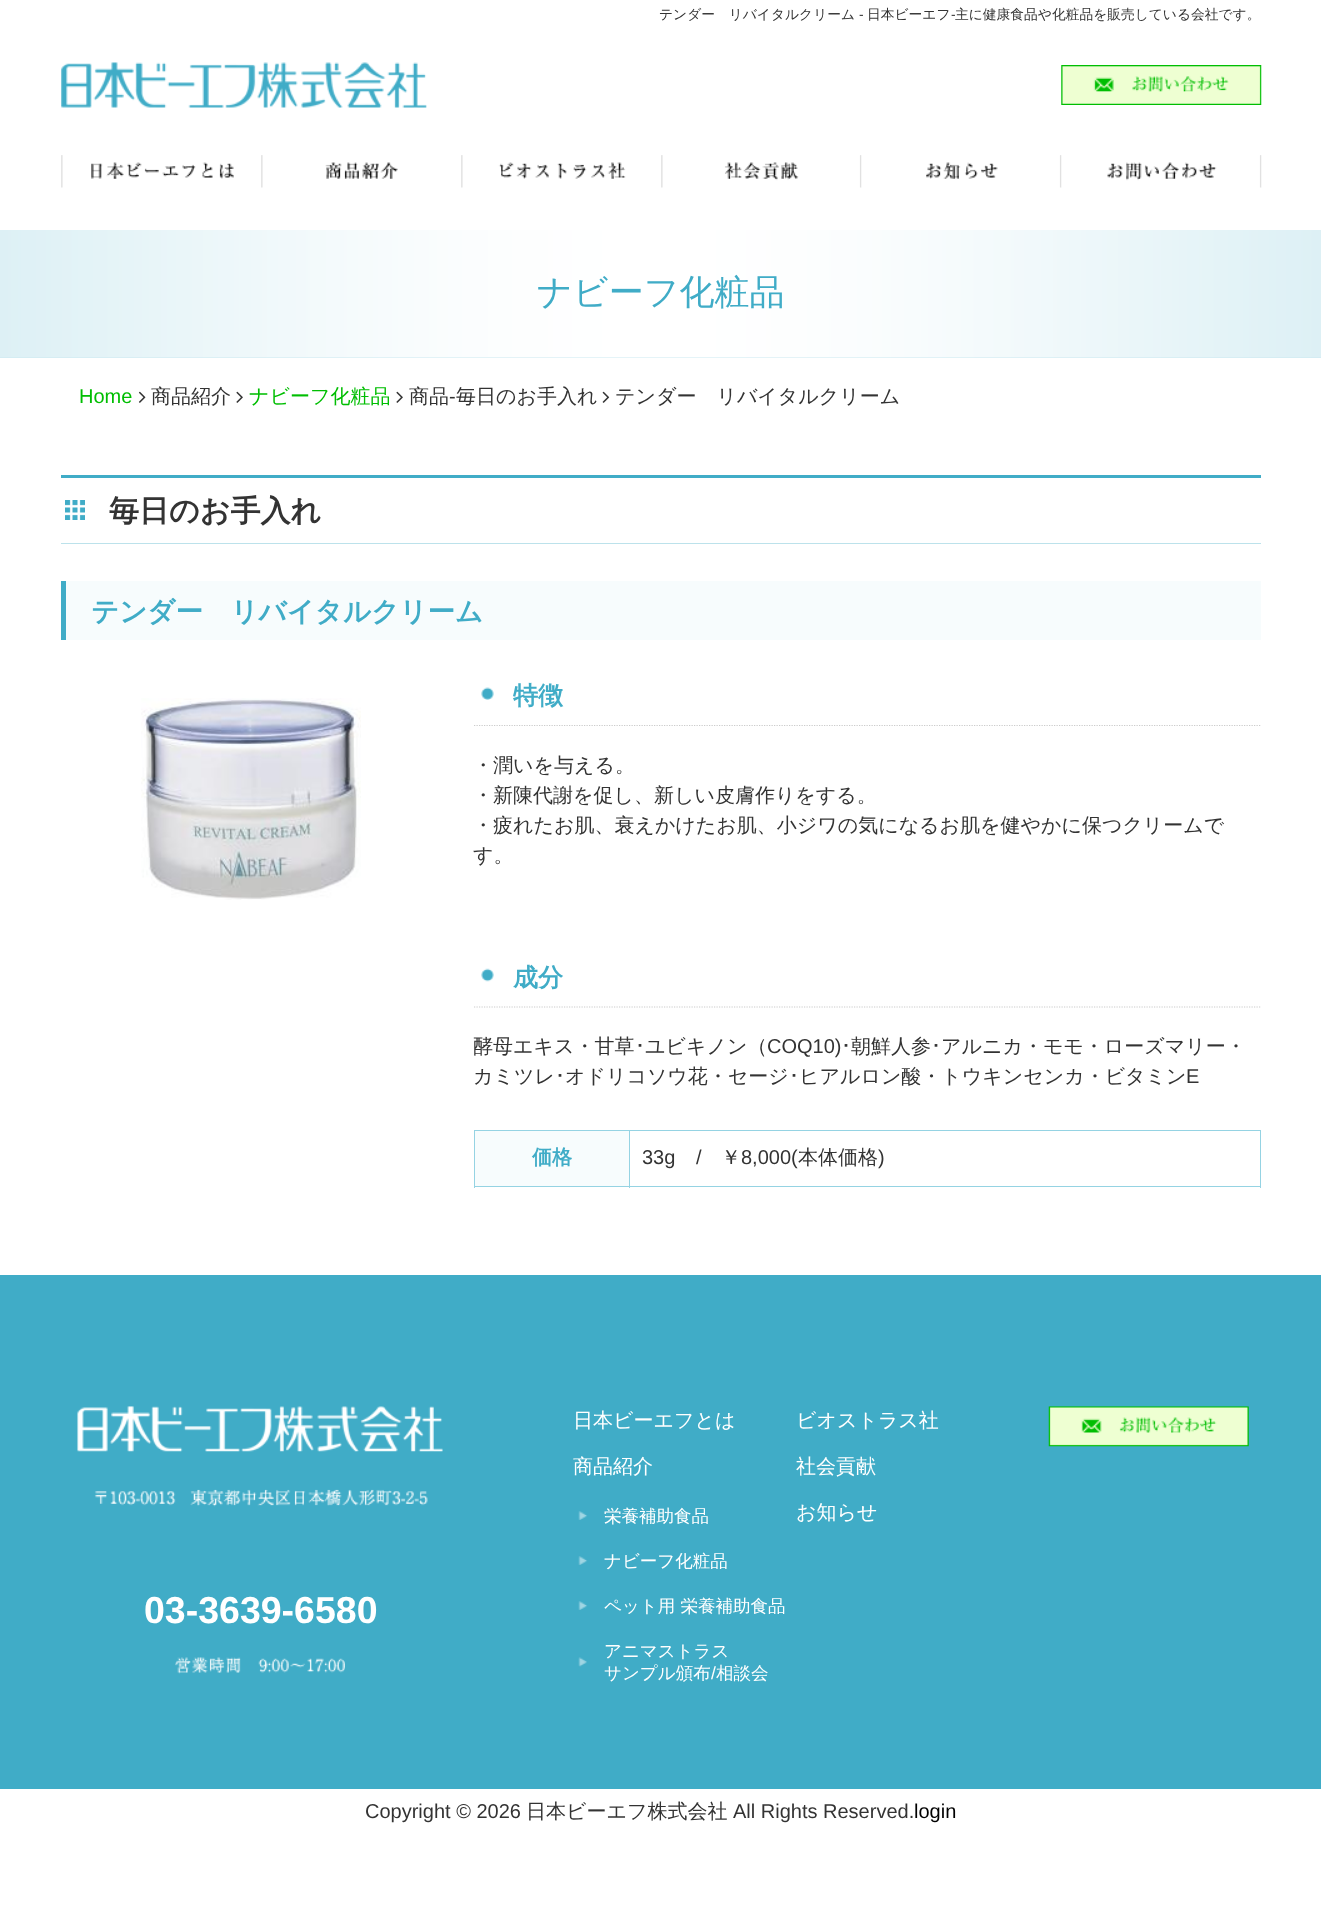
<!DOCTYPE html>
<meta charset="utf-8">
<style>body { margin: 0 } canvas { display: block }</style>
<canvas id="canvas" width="1321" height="1926"></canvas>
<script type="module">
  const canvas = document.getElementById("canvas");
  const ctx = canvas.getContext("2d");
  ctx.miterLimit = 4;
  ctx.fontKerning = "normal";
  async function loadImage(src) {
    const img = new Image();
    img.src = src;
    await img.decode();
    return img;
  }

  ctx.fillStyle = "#ffffff";
  ctx.fillRect(0, 0, 1321, 1926);
  ctx.font = "500 13.75px WenQuanYi Zen Hei";
  ctx.fillStyle = "#333333";
  ctx.fillText("テンダー　リバイタルクリーム", 659, 19);
  ctx.font = "13.75px Liberation Sans";
  ctx.fillText("-", 859, 19);
  ctx.font = "500 13.75px WenQuanYi Zen Hei";
  ctx.fillText("日本ビーエフ", 867, 19);
  ctx.font = "13.75px Liberation Sans";
  ctx.fillText("-", 951, 19);
  ctx.font = "500 13.75px WenQuanYi Zen Hei";
  ctx.fillText("主に健康食品や化粧品を販売している会社です。", 955, 19);
  ctx.drawImage(await loadImage("img1.png"), 61, 62, 366, 46);
  ctx.drawImage(await loadImage("img2.png"), 1061, 65, 201, 40);
  ctx.drawImage(await loadImage("img3.png"), 61, 155, 173, 33);
  ctx.drawImage(await loadImage("img4.png"), 261, 155, 137, 33);
  ctx.drawImage(await loadImage("img5.png"), 461, 155, 165, 33);
  ctx.drawImage(await loadImage("img6.png"), 661, 155, 201, 33);
  ctx.drawImage(await loadImage("img7.png"), 926, 155, 136, 33);
  ctx.drawImage(await loadImage("img8.png"), 1107, 155, 155, 33);
  ctx.fillStyle = "#cbe9f0";
  ctx.fillRect(0, 357, 1321, 1);
  ctx.drawImage(await loadImage("img9.png"), 0, 230, 1321, 128);
  ctx.font = "500 35px WenQuanYi Zen Hei";
  ctx.fillStyle = "#40acc7";
  ctx.fillText("ナビーフ化粧品", 537, 304);
  ctx.font = "20px Liberation Sans";
  ctx.fillStyle = "#00be02";
  ctx.fillText("Home", 79, 403);
  ctx.drawImage(await loadImage("img10.png"), 138, 391, 8, 12);
  ctx.font = "500 20px WenQuanYi Zen Hei";
  ctx.fillStyle = "#333333";
  ctx.fillText("商品紹介", 151, 403);
  ctx.drawImage(await loadImage("img11.png"), 236, 391, 7, 12);
  ctx.fillStyle = "#00be02";
  ctx.fillText("ナビーフ化粧品", 249, 403);
  ctx.drawImage(await loadImage("img11.png"), 396, 391, 7, 12);
  ctx.fillStyle = "#333333";
  ctx.fillText("商品", 409, 403);
  ctx.font = "20px Liberation Sans";
  ctx.fillText("-", 449, 403);
  ctx.font = "500 20px WenQuanYi Zen Hei";
  ctx.fillText("毎日のお手入れ", 456, 403);
  ctx.drawImage(await loadImage("img12.png"), 602, 391, 8, 12);
  ctx.fillText("テンダー　リバイタルクリーム", 615, 403);
  ctx.drawImage(await loadImage("img13.png"), 65, 500, 20, 20);
  ctx.fillStyle = "#40acc7";
  ctx.fillRect(61, 475, 1200, 3);
  ctx.fillStyle = "#bce2eb";
  ctx.fillRect(61, 543, 1200, 1);
  ctx.font = "bold 30px WenQuanYi Zen Hei";
  ctx.fillStyle = "#333333";
  ctx.fillText("毎日のお手入れ", 109, 521);
  ctx.fillStyle = "#f7fcfd";
  ctx.fillRect(66, 581, 1195, 59);
  ctx.fillStyle = "#40acc7";
  ctx.fillRect(61, 581, 5, 59);
  ctx.font = "bold 27.5px WenQuanYi Zen Hei";
  ctx.fillText("テンダー　リバイタルクリーム", 91, 621);
  ctx.drawImage(await loadImage("img14.png"), 141, 698, 220, 202);
  ctx.drawImage(await loadImage("img15.png"), 481, 687, 13, 13);
  ctx.beginPath();
  ctx.moveTo(474, 725.5);
  ctx.lineTo(1261, 725.5);
  ctx.strokeStyle = "#cccccc";
  ctx.lineWidth = 1.2;
  ctx.setLineDash([1.25, 1.25]);
  ctx.stroke();
  ctx.font = "bold 25px WenQuanYi Zen Hei";
  ctx.fillText("特徴", 513, 704);
  ctx.font = "500 20px WenQuanYi Zen Hei";
  ctx.fillStyle = "#333333";
  ctx.fillText("・潤いを与える。", 473, 772);
  ctx.fillText("・新陳代謝を促し、新しい皮膚作りをする。", 473, 802);
  ctx.fillText("・疲れたお肌、衰えかけたお肌、小ジワの気になるお肌を健やかに保つクリームで", 473, 832);
  ctx.fillText("す。", 473, 862);
  ctx.drawImage(await loadImage("img16.png"), 481, 968, 13, 14);
  ctx.beginPath();
  ctx.moveTo(474, 1007);
  ctx.lineTo(1261, 1007);
  ctx.stroke();
  ctx.font = "bold 25px WenQuanYi Zen Hei";
  ctx.fillStyle = "#40acc7";
  ctx.fillText("成分", 513, 986);
  ctx.font = "500 20px WenQuanYi Zen Hei";
  ctx.fillStyle = "#333333";
  ctx.fillText("酵母エキス・甘草", 473, 1053);
  ctx.font = "20px IPAPGothic";
  ctx.fillText("･", 635, 1053);
  ctx.font = "500 20px WenQuanYi Zen Hei";
  ctx.fillText("ユビキノン（", 645, 1053);
  ctx.font = "20px Liberation Sans";
  ctx.fillText("COQ10)", 767, 1053);
  ctx.font = "20px IPAPGothic";
  ctx.fillText("･", 841, 1053);
  ctx.font = "500 20px WenQuanYi Zen Hei";
  ctx.fillText("朝鮮人参", 851, 1053);
  ctx.font = "20px IPAPGothic";
  ctx.fillText("･", 931, 1053);
  ctx.font = "500 20px WenQuanYi Zen Hei";
  ctx.fillText("アルニカ・モモ・ローズマリー・", 941, 1053);
  ctx.fillText("カミツレ", 473, 1083);
  ctx.font = "20px IPAPGothic";
  ctx.fillText("･", 555, 1083);
  ctx.font = "500 20px WenQuanYi Zen Hei";
  ctx.fillText("オドリコソウ花・セージ", 565, 1083);
  ctx.font = "20px IPAPGothic";
  ctx.fillText("･", 789, 1083);
  ctx.font = "500 20px WenQuanYi Zen Hei";
  ctx.fillText("ヒアルロン酸・トウキンセンカ・ビタミン", 799, 1083);
  ctx.font = "20px Liberation Sans";
  ctx.fillText("E", 1186, 1083);
  ctx.fillStyle = "#f7fcfd";
  ctx.fillRect(475, 1131, 154, 55);
  ctx.fillStyle = "#95d3e3";
  ctx.fillRect(629, 1130, 632, 1);
  ctx.fillRect(1260, 1130, 1, 58);
  ctx.fillRect(629, 1186, 632, 1);
  ctx.fillRect(629, 1130, 1, 58);
  ctx.fillRect(474, 1130, 156, 1);
  ctx.fillRect(474, 1186, 156, 1);
  ctx.fillRect(474, 1130, 1, 58);
  ctx.font = "bold 20px WenQuanYi Zen Hei";
  ctx.fillStyle = "#40acc7";
  ctx.fillText("価格", 532, 1164);
  ctx.font = "20px Liberation Sans";
  ctx.fillStyle = "#333333";
  ctx.fillText("33g", 642, 1164);
  ctx.fillText("/", 696, 1164);
  ctx.font = "500 20px WenQuanYi Zen Hei";
  ctx.fillText("￥", 721, 1164);
  ctx.font = "20px Liberation Sans";
  ctx.fillText("8,000(", 741, 1164);
  ctx.font = "500 20px WenQuanYi Zen Hei";
  ctx.fillText("本体価格", 798, 1164);
  ctx.font = "20px Liberation Sans";
  ctx.fillText(")", 878, 1164);
  ctx.fillStyle = "#40acc7";
  ctx.fillRect(0, 1275, 1321, 514);
  ctx.font = "500 20px WenQuanYi Zen Hei";
  ctx.fillStyle = "#ffffff";
  ctx.fillText("日本ビーエフとは", 573, 1427);
  ctx.fillText("商品紹介", 573, 1473);
  ctx.drawImage(await loadImage("img17.png"), 578, 1511, 10, 9);
  ctx.font = "500 17.5px WenQuanYi Zen Hei";
  ctx.fillText("栄養補助食品", 604, 1522);
  ctx.drawImage(await loadImage("img17.png"), 578, 1556, 10, 9);
  ctx.fillText("ナビーフ化粧品", 604, 1567);
  ctx.drawImage(await loadImage("img17.png"), 578, 1601, 10, 9);
  ctx.fillText("ペット用 栄養補助食品", 604, 1612);
  ctx.drawImage(await loadImage("img18.png"), 578, 1657, 9, 10);
  ctx.fillText("アニマストラス", 604, 1657);
  ctx.fillText("サンプル頒布", 604, 1679);
  ctx.font = "17.5px Liberation Sans";
  ctx.fillText("/", 711, 1679);
  ctx.font = "500 17.5px WenQuanYi Zen Hei";
  ctx.fillText("相談会", 716, 1679);
  ctx.font = "500 20px WenQuanYi Zen Hei";
  ctx.fillText("ビオストラス社", 796, 1427);
  ctx.fillText("社会貢献", 796, 1473);
  ctx.fillText("お知らせ", 796, 1519);
  ctx.drawImage(await loadImage("img19.png"), 1048, 1406, 201, 41);
  ctx.drawImage(await loadImage("img20.png"), 77, 1406, 366, 46);
  ctx.drawImage(await loadImage("img21.png"), 94, 1489, 334, 18);
  ctx.font = "bold 37.5px Liberation Sans";
  ctx.fillText("03-3639-6580", 144, 1623);
  ctx.drawImage(await loadImage("img22.png"), 175, 1657, 170, 17);
  ctx.font = "20px Liberation Sans";
  ctx.fillStyle = "#333333";
  ctx.fillText("Copyright © 2026", 365, 1818);
  ctx.font = "500 20px WenQuanYi Zen Hei";
  ctx.fillText("日本ビーエフ株式会社", 526, 1818);
  ctx.font = "20px Liberation Sans";
  ctx.fillText("All Rights Reserved.", 733, 1818);
  ctx.fillStyle = "#000000";
  ctx.fillText("login", 914, 1818);
</script>
